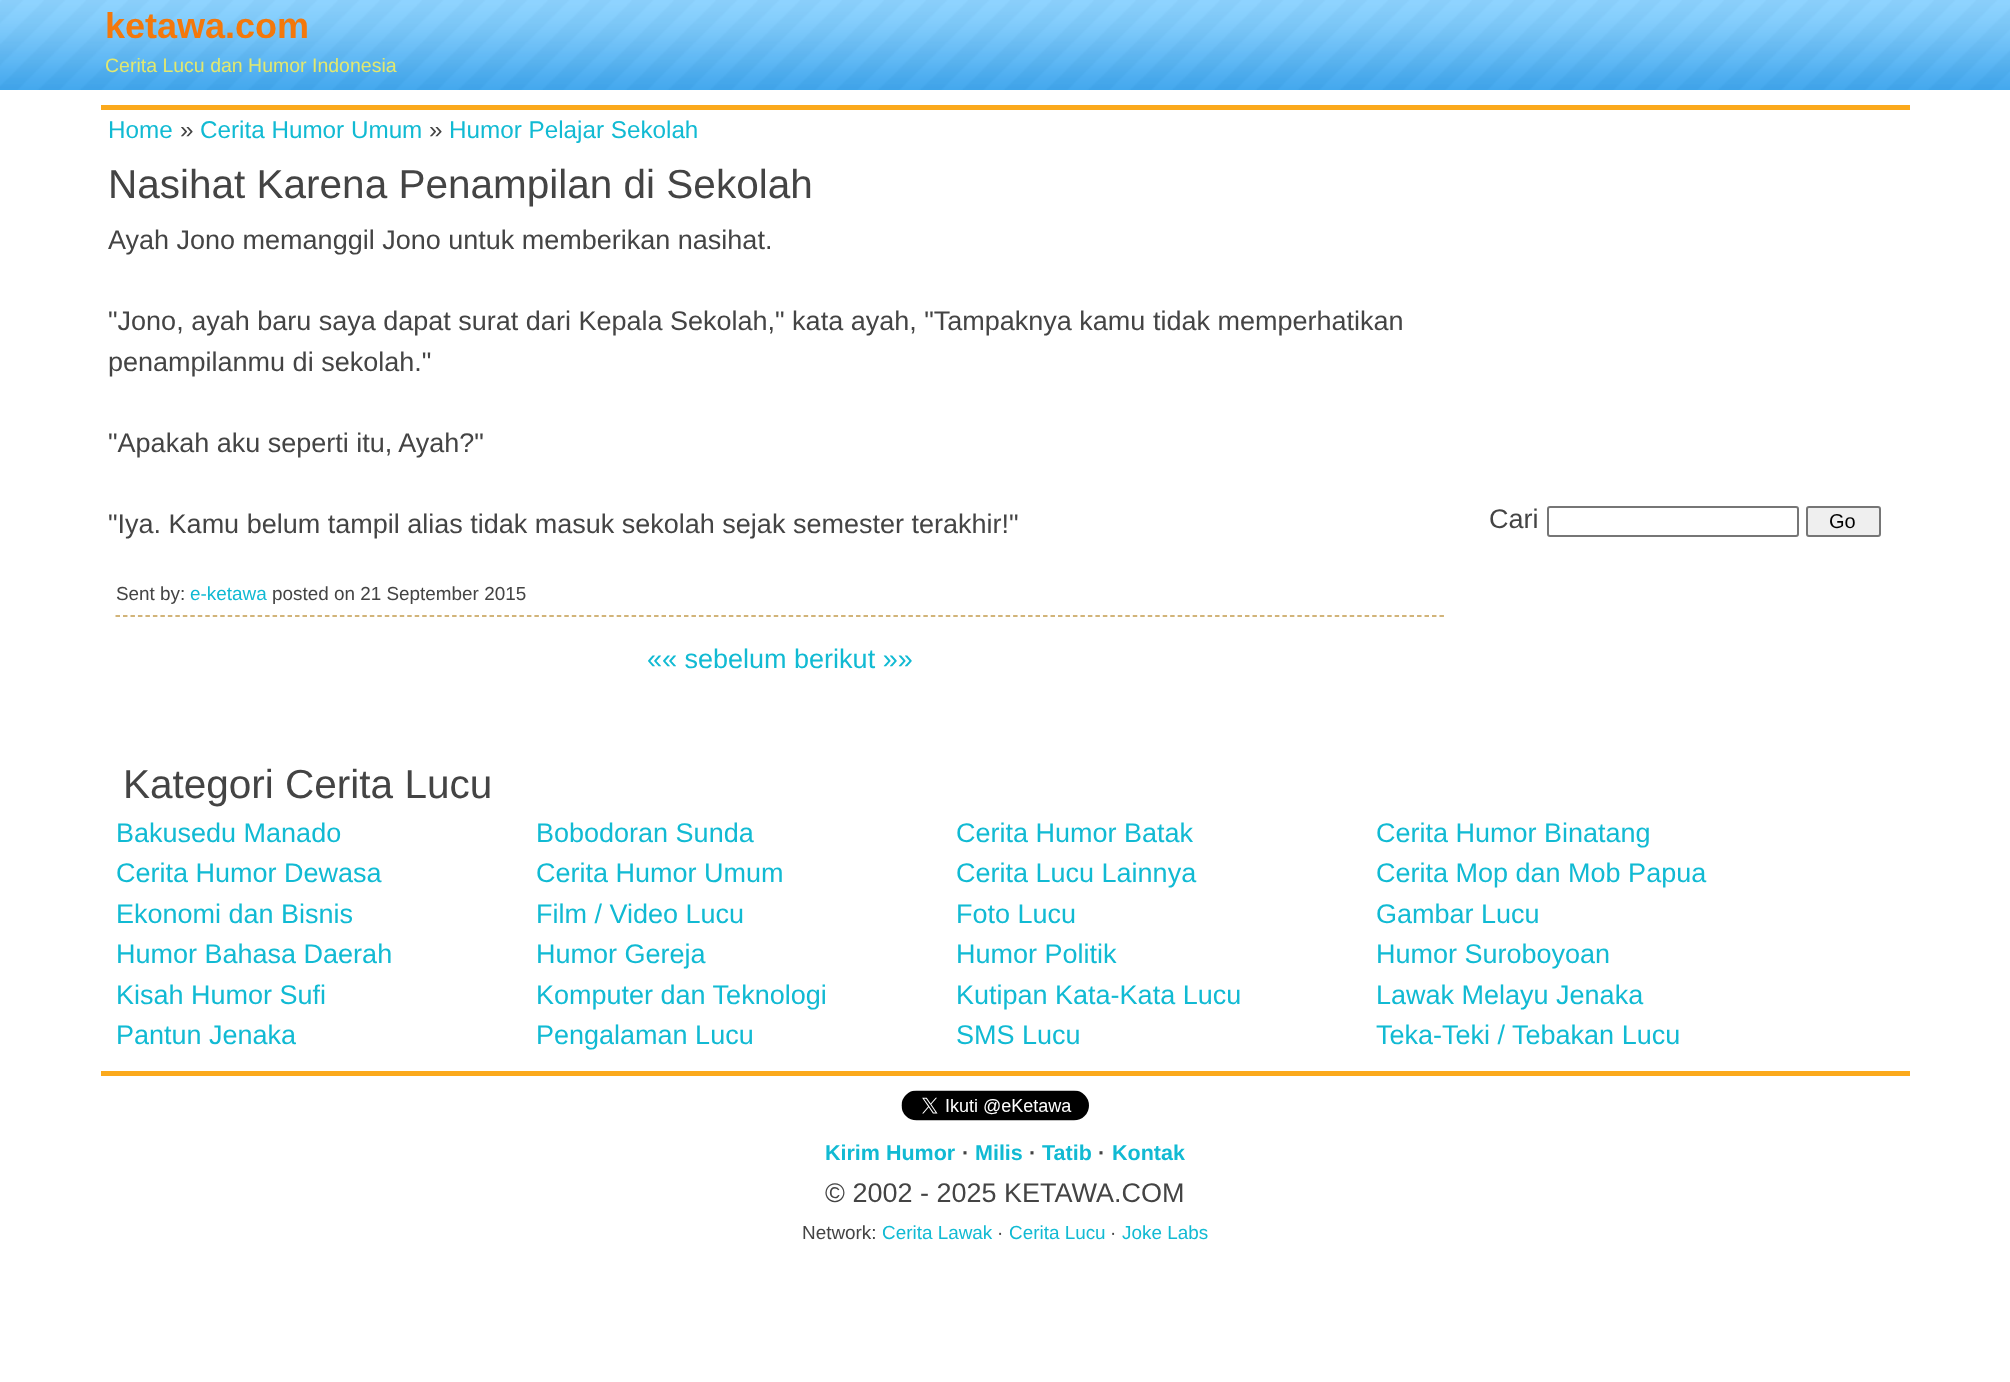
<!DOCTYPE html>
<meta charset="utf-8">
<style>body { margin: 0 } canvas { display: block }</style>
<canvas id="canvas" width="2010" height="1382"></canvas>
<script type="module">
  const canvas = document.getElementById("canvas");
  const ctx = canvas.getContext("2d");
  ctx.miterLimit = 4;
  ctx.fontKerning = "normal";
  async function loadImage(src) {
    const img = new Image();
    img.src = src;
    await img.decode();
    return img;
  }

  ctx.fillStyle = "#ffffff";
  ctx.fillRect(0, 0, 2010, 1382);
  ctx.drawImage(await loadImage("img1.png"), 0, 0, 2010, 90);
  ctx.font = "bold 36px Liberation Sans";
  ctx.fillStyle = "#f3780b";
  ctx.fillText("ketawa.com", 105, 38);
  ctx.font = "19.5px Liberation Sans";
  ctx.fillStyle = "#e2e86f";
  ctx.fillText("Cerita Lucu dan Humor Indonesia", 105, 72);
  ctx.fillStyle = "#fba91c";
  ctx.fillRect(101, 105, 1809, 5);
  ctx.font = "24.25px Liberation Sans";
  ctx.fillStyle = "#11bad3";
  ctx.fillText("Home", 108, 138);
  ctx.fillStyle = "#444444";
  ctx.fillText("»", 180, 138);
  ctx.fillStyle = "#11bad3";
  ctx.fillText("Cerita Humor Umum", 200, 138);
  ctx.fillStyle = "#444444";
  ctx.fillText("»", 429, 138);
  ctx.fillStyle = "#11bad3";
  ctx.fillText("Humor Pelajar Sekolah", 449, 138);
  ctx.font = "40.5px Liberation Sans";
  ctx.fillStyle = "#444444";
  ctx.fillText("Nasihat Karena Penampilan di Sekolah", 108, 198);
  ctx.font = "27px Liberation Sans";
  ctx.fillText("Ayah Jono memanggil Jono untuk memberikan nasihat.", 108, 249);
  ctx.fillText("\"Jono, ayah baru saya dapat surat dari Kepala Sekolah,\" kata ayah, \"Tampaknya kamu tidak memperhatikan", 108, 330);
  ctx.fillText("penampilanmu di sekolah.\"", 108, 371);
  ctx.fillText("\"Apakah aku seperti itu, Ayah?\"", 108, 452);
  ctx.fillText("\"Iya. Kamu belum tampil alias tidak masuk sekolah sejak semester terakhir!\"", 108, 533);
  ctx.beginPath();
  ctx.moveTo(115.5, 616);
  ctx.lineTo(1444.5, 616);
  ctx.strokeStyle = "#c39c4e";
  ctx.lineWidth = 1.5;
  ctx.setLineDash([4.5, 2.98]);
  ctx.stroke();
  ctx.font = "18.9px Liberation Sans";
  ctx.fillText("Sent by:", 116, 600);
  ctx.fillStyle = "#11bad3";
  ctx.fillText("e-ketawa", 190, 600);
  ctx.fillStyle = "#444444";
  ctx.fillText("posted on 21 September 2015", 272, 600);
  ctx.font = "27px Liberation Sans";
  ctx.fillStyle = "#11bad3";
  ctx.fillText("«« sebelum berikut »»", 647, 668);
  ctx.fillStyle = "#444444";
  ctx.fillText("Cari", 1489, 528);
  ctx.beginPath();
  ctx.roundRect(1548, 507, 250, 29, 2);
  ctx.strokeStyle = "#767676";
  ctx.lineWidth = 2;
  ctx.setLineDash([]);
  ctx.stroke();
  ctx.fillStyle = "#efefef";
  ctx.beginPath();
  ctx.roundRect(1807, 507, 73, 29, 2);
  ctx.fill();
  ctx.stroke();
  ctx.font = "20px Liberation Sans";
  ctx.fillStyle = "#000000";
  ctx.fillText("Go", 1829, 528);
  ctx.font = "40.5px Liberation Sans";
  ctx.fillStyle = "#444444";
  ctx.fillText("Kategori Cerita Lucu", 123, 798);
  ctx.font = "27px Liberation Sans";
  ctx.fillStyle = "#11bad3";
  ctx.fillText("Bakusedu Manado", 116, 842);
  ctx.fillText("Bobodoran Sunda", 536, 842);
  ctx.fillText("Cerita Humor Batak", 956, 842);
  ctx.fillText("Cerita Humor Binatang", 1376, 842);
  ctx.fillText("Cerita Humor Dewasa", 116, 882);
  ctx.fillText("Cerita Humor Umum", 536, 882);
  ctx.fillText("Cerita Lucu Lainnya", 956, 882);
  ctx.fillText("Cerita Mop dan Mob Papua", 1376, 882);
  ctx.fillText("Ekonomi dan Bisnis", 116, 923);
  ctx.fillText("Film / Video Lucu", 536, 923);
  ctx.fillText("Foto Lucu", 956, 923);
  ctx.fillText("Gambar Lucu", 1376, 923);
  ctx.fillText("Humor Bahasa Daerah", 116, 963);
  ctx.fillText("Humor Gereja", 536, 963);
  ctx.fillText("Humor Politik", 956, 963);
  ctx.fillText("Humor Suroboyoan", 1376, 963);
  ctx.fillText("Kisah Humor Sufi", 116, 1004);
  ctx.fillText("Komputer dan Teknologi", 536, 1004);
  ctx.fillText("Kutipan Kata-Kata Lucu", 956, 1004);
  ctx.fillText("Lawak Melayu Jenaka", 1376, 1004);
  ctx.fillText("Pantun Jenaka", 116, 1044);
  ctx.fillText("Pengalaman Lucu", 536, 1044);
  ctx.fillText("SMS Lucu", 956, 1044);
  ctx.fillText("Teka-Teki / Tebakan Lucu", 1376, 1044);
  ctx.fillStyle = "#fba91c";
  ctx.fillRect(101, 1071, 1809, 5);
  ctx.drawImage(await loadImage("img2.png"), 901, 1090, 188, 31);
  ctx.font = "bold 21.5px Liberation Sans";
  ctx.fillStyle = "#11bad3";
  ctx.fillText("Kirim Humor", 825, 1160);
  ctx.fillStyle = "#444444";
  ctx.fillText("·", 962, 1160);
  ctx.fillStyle = "#11bad3";
  ctx.fillText("Milis", 975, 1160);
  ctx.fillStyle = "#444444";
  ctx.fillText("·", 1029, 1160);
  ctx.fillStyle = "#11bad3";
  ctx.fillText("Tatib", 1042, 1160);
  ctx.fillStyle = "#444444";
  ctx.fillText("·", 1098, 1160);
  ctx.fillStyle = "#11bad3";
  ctx.fillText("Kontak", 1112, 1160);
  ctx.font = "27px Liberation Sans";
  ctx.fillStyle = "#444444";
  ctx.fillText("© 2002 - 2025 KETAWA.COM", 825, 1202);
  ctx.font = "18.9px Liberation Sans";
  ctx.fillText("Network:", 802, 1239);
  ctx.fillStyle = "#11bad3";
  ctx.fillText("Cerita Lawak", 882, 1239);
  ctx.fillStyle = "#444444";
  ctx.fillText("·", 997, 1239);
  ctx.fillStyle = "#11bad3";
  ctx.fillText("Cerita Lucu", 1009, 1239);
  ctx.fillStyle = "#444444";
  ctx.fillText("·", 1110, 1239);
  ctx.fillStyle = "#11bad3";
  ctx.fillText("Joke Labs", 1122, 1239);
</script>
